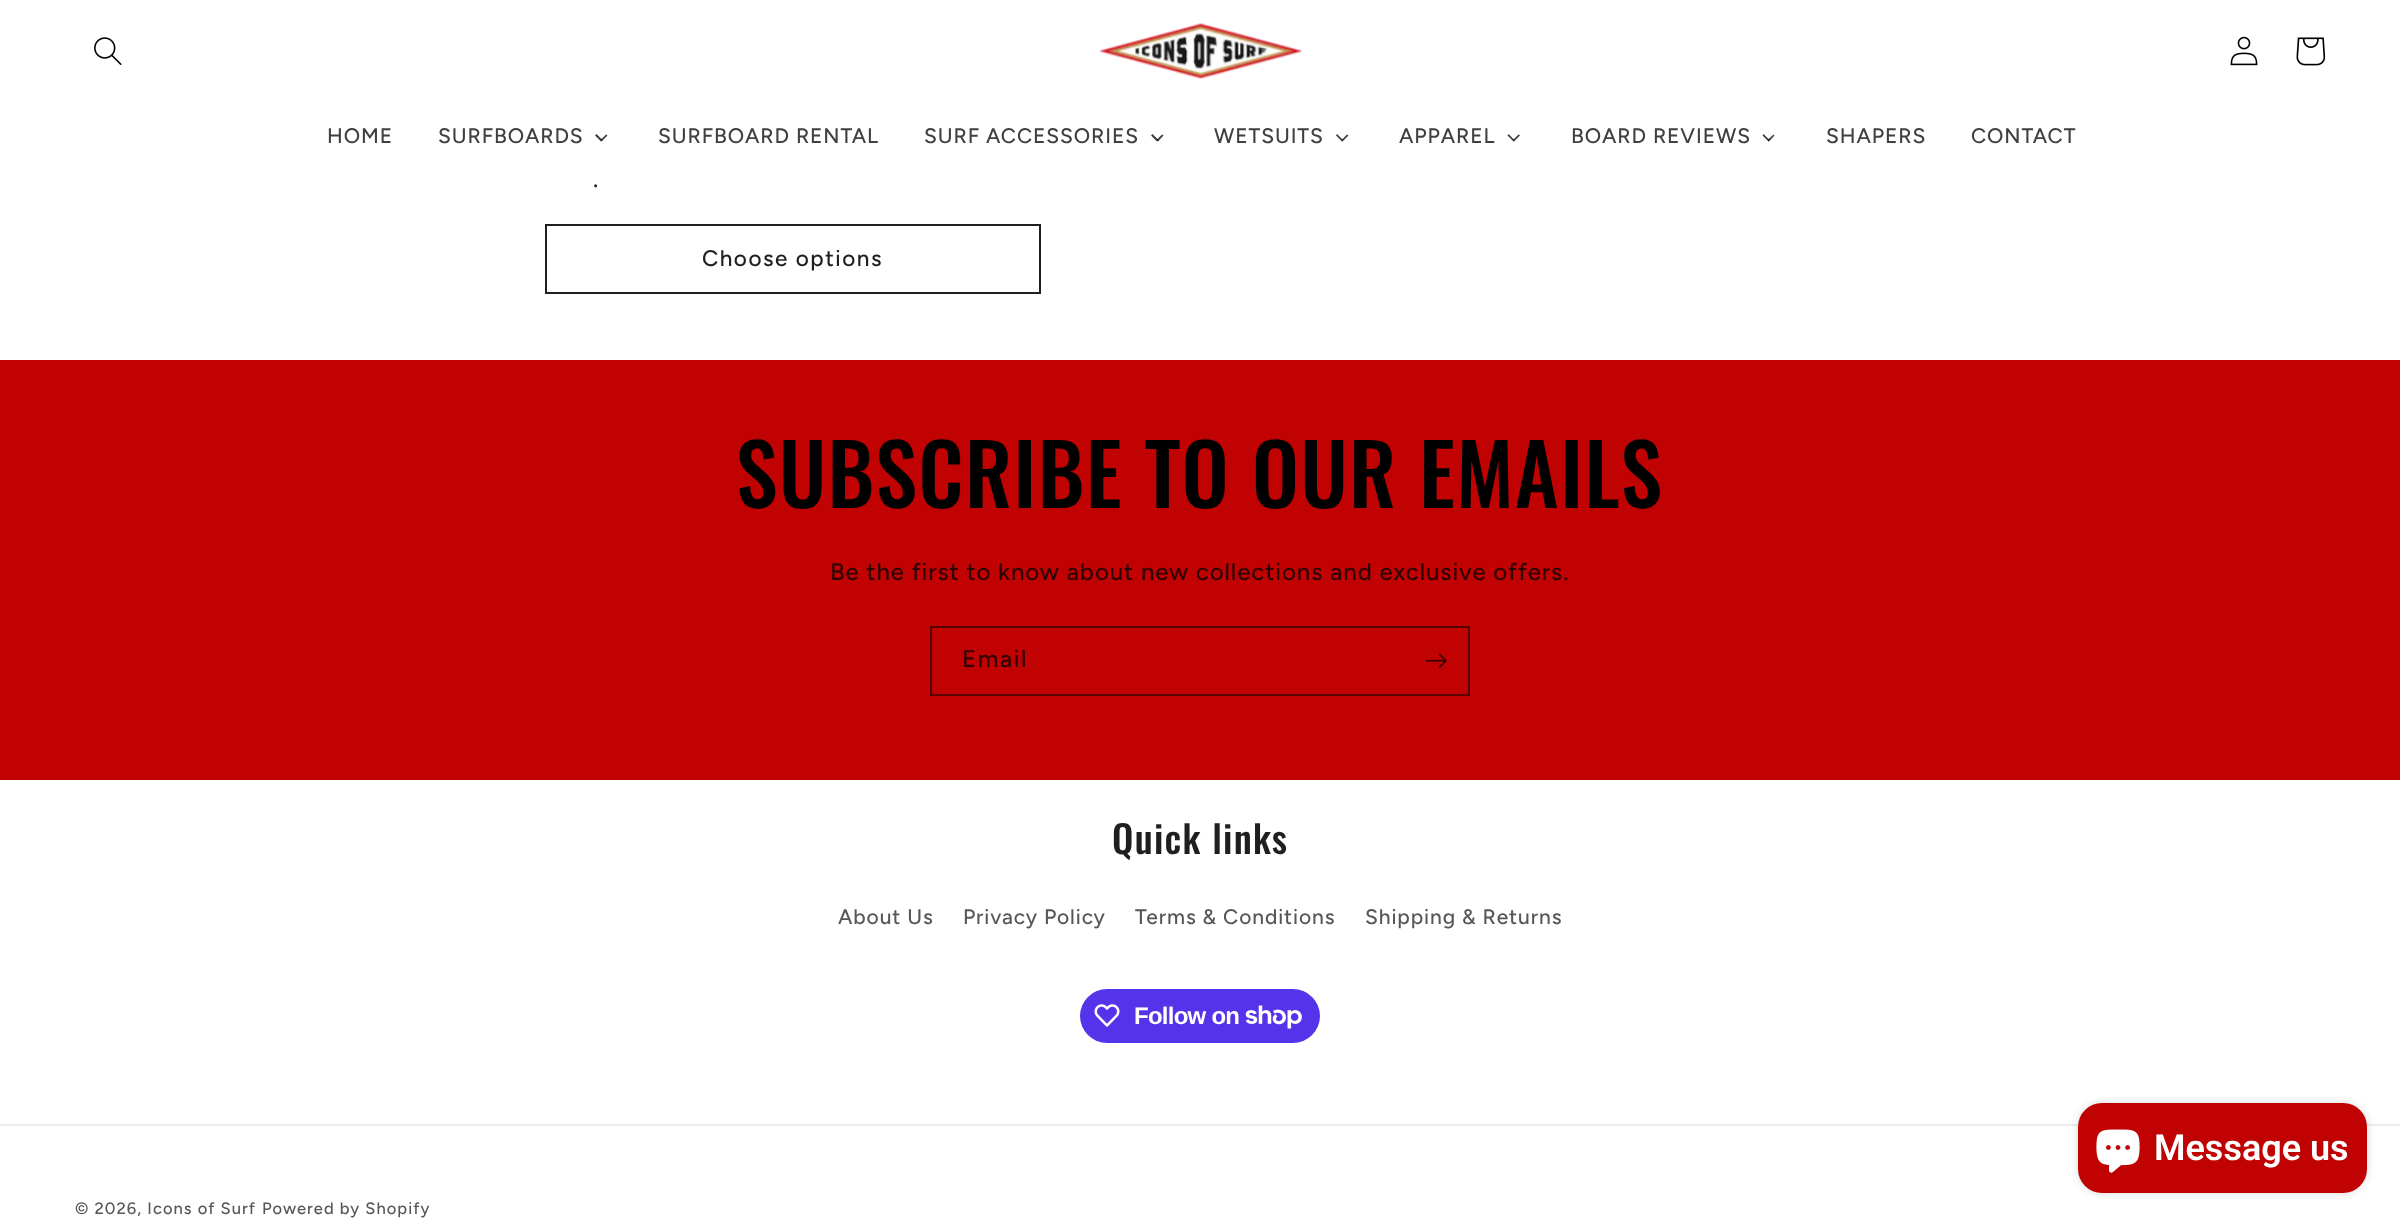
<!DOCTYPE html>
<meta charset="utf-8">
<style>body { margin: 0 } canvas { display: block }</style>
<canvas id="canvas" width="2400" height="1224"></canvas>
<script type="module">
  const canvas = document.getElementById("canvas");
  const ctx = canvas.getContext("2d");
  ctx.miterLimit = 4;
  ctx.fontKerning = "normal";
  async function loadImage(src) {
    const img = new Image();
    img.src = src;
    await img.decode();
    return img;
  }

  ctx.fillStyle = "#ffffff";
  ctx.fillRect(0, 0, 2400, 1224);
  ctx.drawImage(await loadImage("img1.png"), 94, 37, 28, 28);
  ctx.drawImage(await loadImage("img2.png"), 1099, 23, 203, 56);
  ctx.drawImage(await loadImage("img3.png"), 2230, 36, 28, 30);
  ctx.drawImage(await loadImage("img4.png"), 2296, 37, 30, 29);
  ctx.letterSpacing = "0.9px";
  ctx.font = "500 21px Figtree";
  ctx.fillStyle = "#404040";
  ctx.fillText("HOME", 327, 143);
  ctx.fillText("SURFBOARDS", 438, 143);
  ctx.beginPath();
  ctx.moveTo(606, 134.5);
  ctx.lineTo(607.5, 135.5);
  ctx.lineTo(601.5, 141.5);
  ctx.lineTo(600.5, 140);
  ctx.closePath();
  ctx.fill();
  ctx.fillStyle = "rgba(0, 0, 0, 0.75)";
  ctx.beginPath();
  ctx.moveTo(596.5, 134);
  ctx.lineTo(602.5, 140);
  ctx.lineTo(601, 141.5);
  ctx.lineTo(595, 135.5);
  ctx.closePath();
  ctx.fill();
  ctx.fillStyle = "#404040";
  ctx.fillText("SURFBOARD RENTAL", 658, 143);
  ctx.fillText("SURF ACCESSORIES", 924, 143);
  ctx.beginPath();
  ctx.moveTo(1162, 134.5);
  ctx.lineTo(1163.5, 135.5);
  ctx.lineTo(1158, 141.5);
  ctx.lineTo(1156.5, 140);
  ctx.closePath();
  ctx.fill();
  ctx.fillStyle = "rgba(0, 0, 0, 0.75)";
  ctx.beginPath();
  ctx.moveTo(1152.5, 134);
  ctx.lineTo(1158.5, 140);
  ctx.lineTo(1157, 141.5);
  ctx.lineTo(1151, 135.5);
  ctx.closePath();
  ctx.fill();
  ctx.fillStyle = "#404040";
  ctx.fillText("WETSUITS", 1214, 143);
  ctx.beginPath();
  ctx.moveTo(1347, 134.5);
  ctx.lineTo(1348.5, 135.5);
  ctx.lineTo(1342.5, 141.5);
  ctx.lineTo(1341.5, 140);
  ctx.closePath();
  ctx.fill();
  ctx.fillStyle = "rgba(0, 0, 0, 0.75)";
  ctx.beginPath();
  ctx.moveTo(1337, 134);
  ctx.lineTo(1343, 140);
  ctx.lineTo(1342, 141.5);
  ctx.lineTo(1336, 135.5);
  ctx.closePath();
  ctx.fill();
  ctx.fillStyle = "#404040";
  ctx.fillText("APPAREL", 1399, 143);
  ctx.beginPath();
  ctx.moveTo(1518.5, 134.5);
  ctx.lineTo(1520, 135.5);
  ctx.lineTo(1514, 141.5);
  ctx.lineTo(1513, 140);
  ctx.closePath();
  ctx.fill();
  ctx.fillStyle = "rgba(0, 0, 0, 0.75)";
  ctx.beginPath();
  ctx.moveTo(1508.5, 134);
  ctx.lineTo(1514.5, 140);
  ctx.lineTo(1513.5, 141.5);
  ctx.lineTo(1507.5, 135.5);
  ctx.closePath();
  ctx.fill();
  ctx.fillStyle = "#404040";
  ctx.fillText("BOARD REVIEWS", 1571, 143);
  ctx.beginPath();
  ctx.moveTo(1773.5, 134.5);
  ctx.lineTo(1774.5, 135.5);
  ctx.lineTo(1769, 141.5);
  ctx.lineTo(1767.5, 140);
  ctx.closePath();
  ctx.fill();
  ctx.fillStyle = "rgba(0, 0, 0, 0.75)";
  ctx.beginPath();
  ctx.moveTo(1763.5, 134);
  ctx.lineTo(1769.5, 140);
  ctx.lineTo(1768.5, 141.5);
  ctx.lineTo(1762.5, 135.5);
  ctx.closePath();
  ctx.fill();
  ctx.fillStyle = "#404040";
  ctx.fillText("SHAPERS", 1826, 143);
  ctx.fillText("CONTACT", 1971, 143);
  ctx.letterSpacing = "1.5px";
  ctx.font = "500 24px Figtree";
  ctx.fillStyle = "#1f1f21";
  ctx.fillText(".", 593, 187);
  ctx.strokeStyle = "#1f1f21";
  ctx.lineWidth = 2;
  ctx.strokeRect(546, 225, 494, 68);
  ctx.font = "500 22.5px Figtree";
  ctx.fillText("Choose options", 702, 266);
  ctx.fillStyle = "#c10202";
  ctx.fillRect(0, 360, 2400, 420);
  ctx.letterSpacing = "1.25px";
  ctx.font = "500 84px Oswald";
  ctx.fillStyle = "#000000";
  ctx.fillText("SUBSCRIBE TO OUR EMAILS", 736, 508);
  ctx.letterSpacing = "0.9px";
  ctx.font = "500 24px Figtree";
  ctx.fillStyle = "#300101";
  ctx.fillText("Be the first to know about new collections and exclusive offers.", 830, 580);
  ctx.strokeStyle = "#570101";
  ctx.strokeRect(931, 627, 538, 68);
  ctx.letterSpacing = "1.5px";
  ctx.fillText("Email", 962, 667);
  ctx.drawImage(await loadImage("img5.png"), 1425, 653, 22, 15);
  ctx.letterSpacing = "1.25px";
  ctx.font = "500 38px Oswald";
  ctx.fillStyle = "#1f1f21";
  ctx.fillText("Quick links", 1112, 854);
  ctx.letterSpacing = "0.9px";
  ctx.font = "500 21px Figtree";
  ctx.fillStyle = "#575759";
  ctx.fillText("About Us", 838, 924);
  ctx.fillText("Privacy Policy", 963, 924);
  ctx.fillText("Terms & Conditions", 1135, 924);
  ctx.fillText("Shipping & Returns", 1365, 924);
  ctx.fillStyle = "#5433eb";
  ctx.beginPath();
  ctx.roundRect(1080, 989, 240, 54, 27);
  ctx.fill();
  ctx.drawImage(await loadImage("img6.png"), 1094, 1004, 26, 23);
  ctx.letterSpacing = "-0.75px";
  ctx.font = "bold 24px Liberation Sans";
  ctx.fillStyle = "#ffffff";
  ctx.fillText("Follow on", 1134, 1024);
  ctx.drawImage(await loadImage("img7.png"), 1245, 1005, 57, 24);
  ctx.fillStyle = "#ededed";
  ctx.fillRect(0, 1124, 2400, 2);
  ctx.letterSpacing = "1.05px";
  ctx.font = "500 16.5px Figtree";
  ctx.fillStyle = "#575759";
  ctx.fillText("© 2026, Icons of Surf", 75, 1214);
  ctx.fillText("Powered by Shopify", 262, 1214);
  ctx.fillStyle = "rgba(0, 0, 0, 0.15)";
  ctx.filter = "blur(4px)";
  ctx.beginPath();
  ctx.roundRect(2078, 1103, 289, 90, 24);
  ctx.fill();
  ctx.filter = "none";
  ctx.fillStyle = "#c10202";
  ctx.beginPath();
  ctx.roundRect(2078, 1103, 289, 90, 24);
  ctx.fill();
  ctx.drawImage(await loadImage("img8.png"), 2096, 1129, 44, 44);
  ctx.letterSpacing = "0px";
  ctx.font = "600 36px Roboto";
  ctx.fillStyle = "#ffffff";
  ctx.fillText("Message us", 2154, 1160);
</script>
